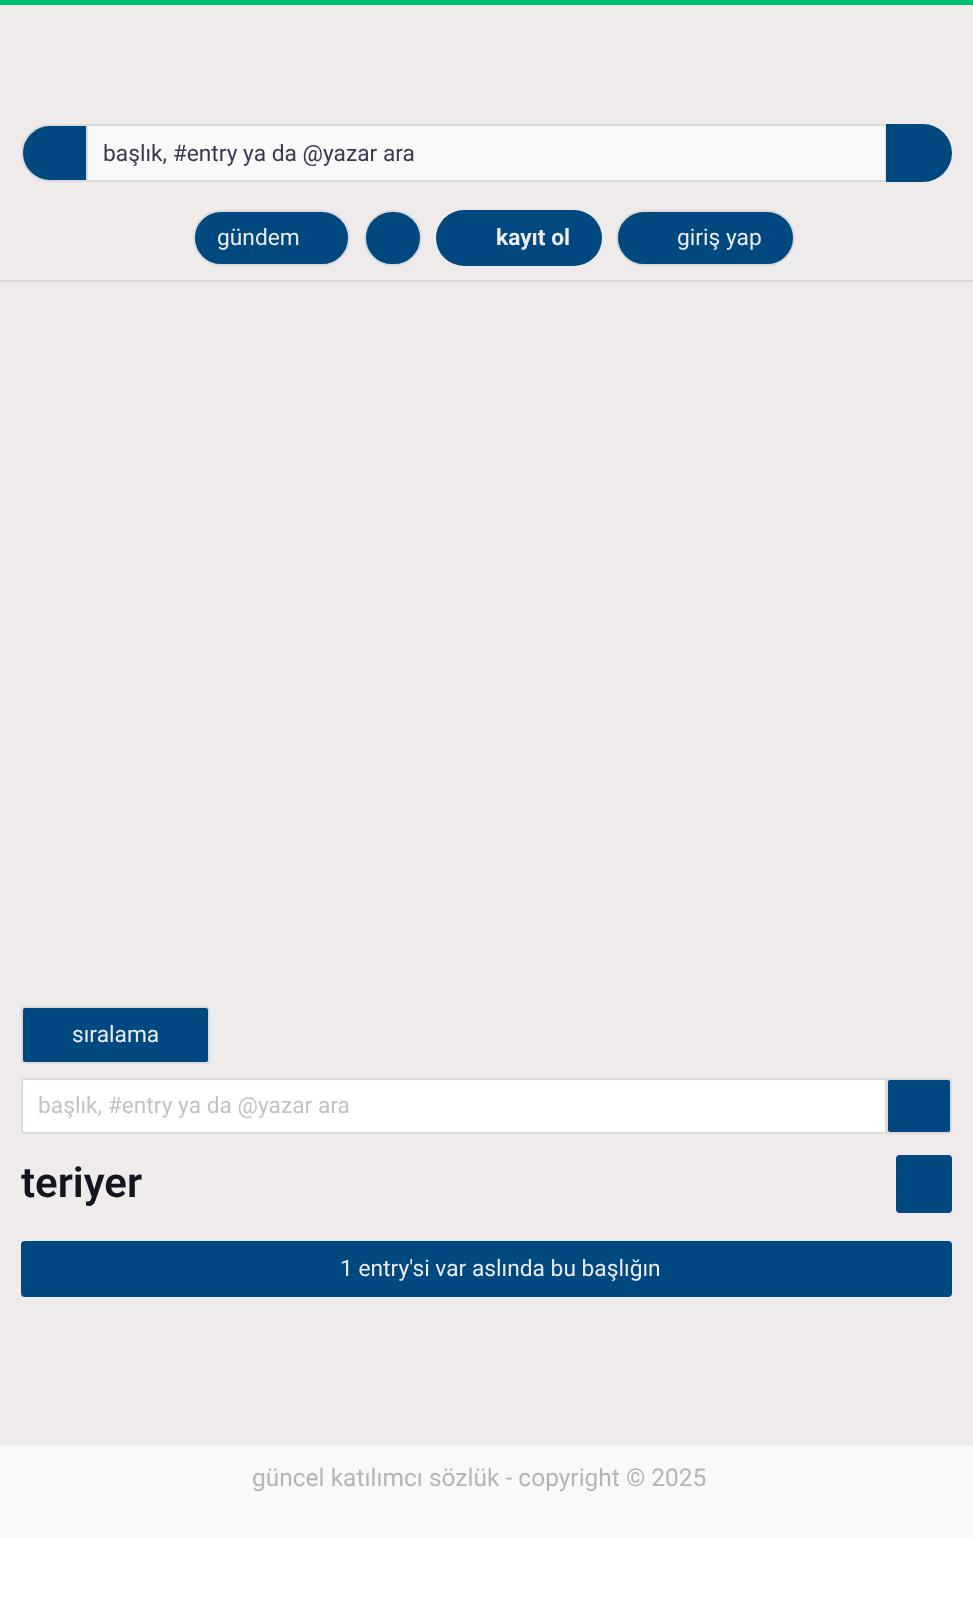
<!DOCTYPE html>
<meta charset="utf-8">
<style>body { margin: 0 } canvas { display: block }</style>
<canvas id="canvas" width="973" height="1601"></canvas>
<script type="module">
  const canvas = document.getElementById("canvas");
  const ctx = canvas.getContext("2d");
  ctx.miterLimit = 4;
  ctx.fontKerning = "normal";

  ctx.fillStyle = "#ffffff";
  ctx.fillRect(0, 0, 973, 1601);
  ctx.fillStyle = "#efebeb";
  ctx.fillRect(0, 5, 973, 1439);
  ctx.fillStyle = "#00bf6f";
  ctx.fillRect(0, 0, 973, 5);
  ctx.fillStyle = "#d8d5d5";
  ctx.fillRect(0, 280, 973, 2);
  ctx.fillStyle = "#004880";
  ctx.beginPath();
  ctx.roundRect(22, 125, 65, 56, [28, 1.5, 1.5, 28]);
  ctx.fill();
  ctx.strokeStyle = "#dbdbdb";
  ctx.lineWidth = 2;
  ctx.stroke();
  ctx.fillStyle = "#faf9f9";
  ctx.beginPath();
  ctx.rect(87, 125, 799, 56);
  ctx.fill();
  ctx.stroke();
  ctx.font = "22.75px Roboto";
  ctx.fillStyle = "#383b50";
  ctx.fillText("başlık, #entry ya da @yazar ara", 103, 161);
  ctx.fillStyle = "#004880";
  ctx.beginPath();
  ctx.roundRect(886, 124, 66, 58, [0, 29, 29, 0]);
  ctx.fill();
  ctx.beginPath();
  ctx.roundRect(194, 211, 155, 54, 27);
  ctx.fill();
  ctx.stroke();
  ctx.fillStyle = "#efebeb";
  ctx.fillText("gündem", 217, 245);
  ctx.fillStyle = "#004880";
  ctx.beginPath();
  ctx.roundRect(365, 211, 56, 54, 27);
  ctx.fill();
  ctx.stroke();
  ctx.beginPath();
  ctx.roundRect(436, 210, 166, 56, 28);
  ctx.fill();
  ctx.font = "bold 22.75px Roboto";
  ctx.fillStyle = "#efebeb";
  ctx.fillText("kayıt ol", 496, 245);
  ctx.fillStyle = "#004880";
  ctx.beginPath();
  ctx.roundRect(617, 211, 177, 54, 27);
  ctx.fill();
  ctx.stroke();
  ctx.font = "22.75px Roboto";
  ctx.fillStyle = "#efebeb";
  ctx.fillText("giriş yap", 677, 245);
  ctx.fillStyle = "#eeeeee";
  ctx.fillRect(0, 1444, 973, 2);
  ctx.fillStyle = "#004880";
  ctx.beginPath();
  ctx.roundRect(22, 1007, 187, 56, 3);
  ctx.fill();
  ctx.stroke();
  ctx.fillStyle = "#efebeb";
  ctx.fillText("sıralama", 72, 1042);
  ctx.fillStyle = "#ffffff";
  ctx.beginPath();
  ctx.roundRect(22, 1079, 864, 54, [3, 0, 0, 3]);
  ctx.fill();
  ctx.stroke();
  ctx.fillStyle = "#c3c3c3";
  ctx.fillText("başlık, #entry ya da @yazar ara", 38, 1113);
  ctx.fillStyle = "#004880";
  ctx.beginPath();
  ctx.roundRect(887, 1079, 64, 54, 3);
  ctx.fill();
  ctx.stroke();
  ctx.font = "600 42px Roboto";
  ctx.fillStyle = "#14151f";
  ctx.fillText("teriyer", 21, 1197);
  ctx.fillStyle = "#004880";
  ctx.beginPath();
  ctx.roundRect(896, 1155, 56, 58, 4);
  ctx.fill();
  ctx.beginPath();
  ctx.roundRect(21, 1241, 931, 56, 4);
  ctx.fill();
  ctx.font = "22.75px Roboto";
  ctx.fillStyle = "#efebeb";
  ctx.fillText("1 entry'si var aslında bu başlığın", 340, 1276);
  ctx.fillStyle = "#faf9f9";
  ctx.fillRect(0, 1446, 973, 92);
  ctx.font = "24.5px Roboto";
  ctx.fillStyle = "#b5b5b5";
  ctx.fillText("güncel katılımcı sözlük - copyright © 2025", 252, 1486);
</script>
